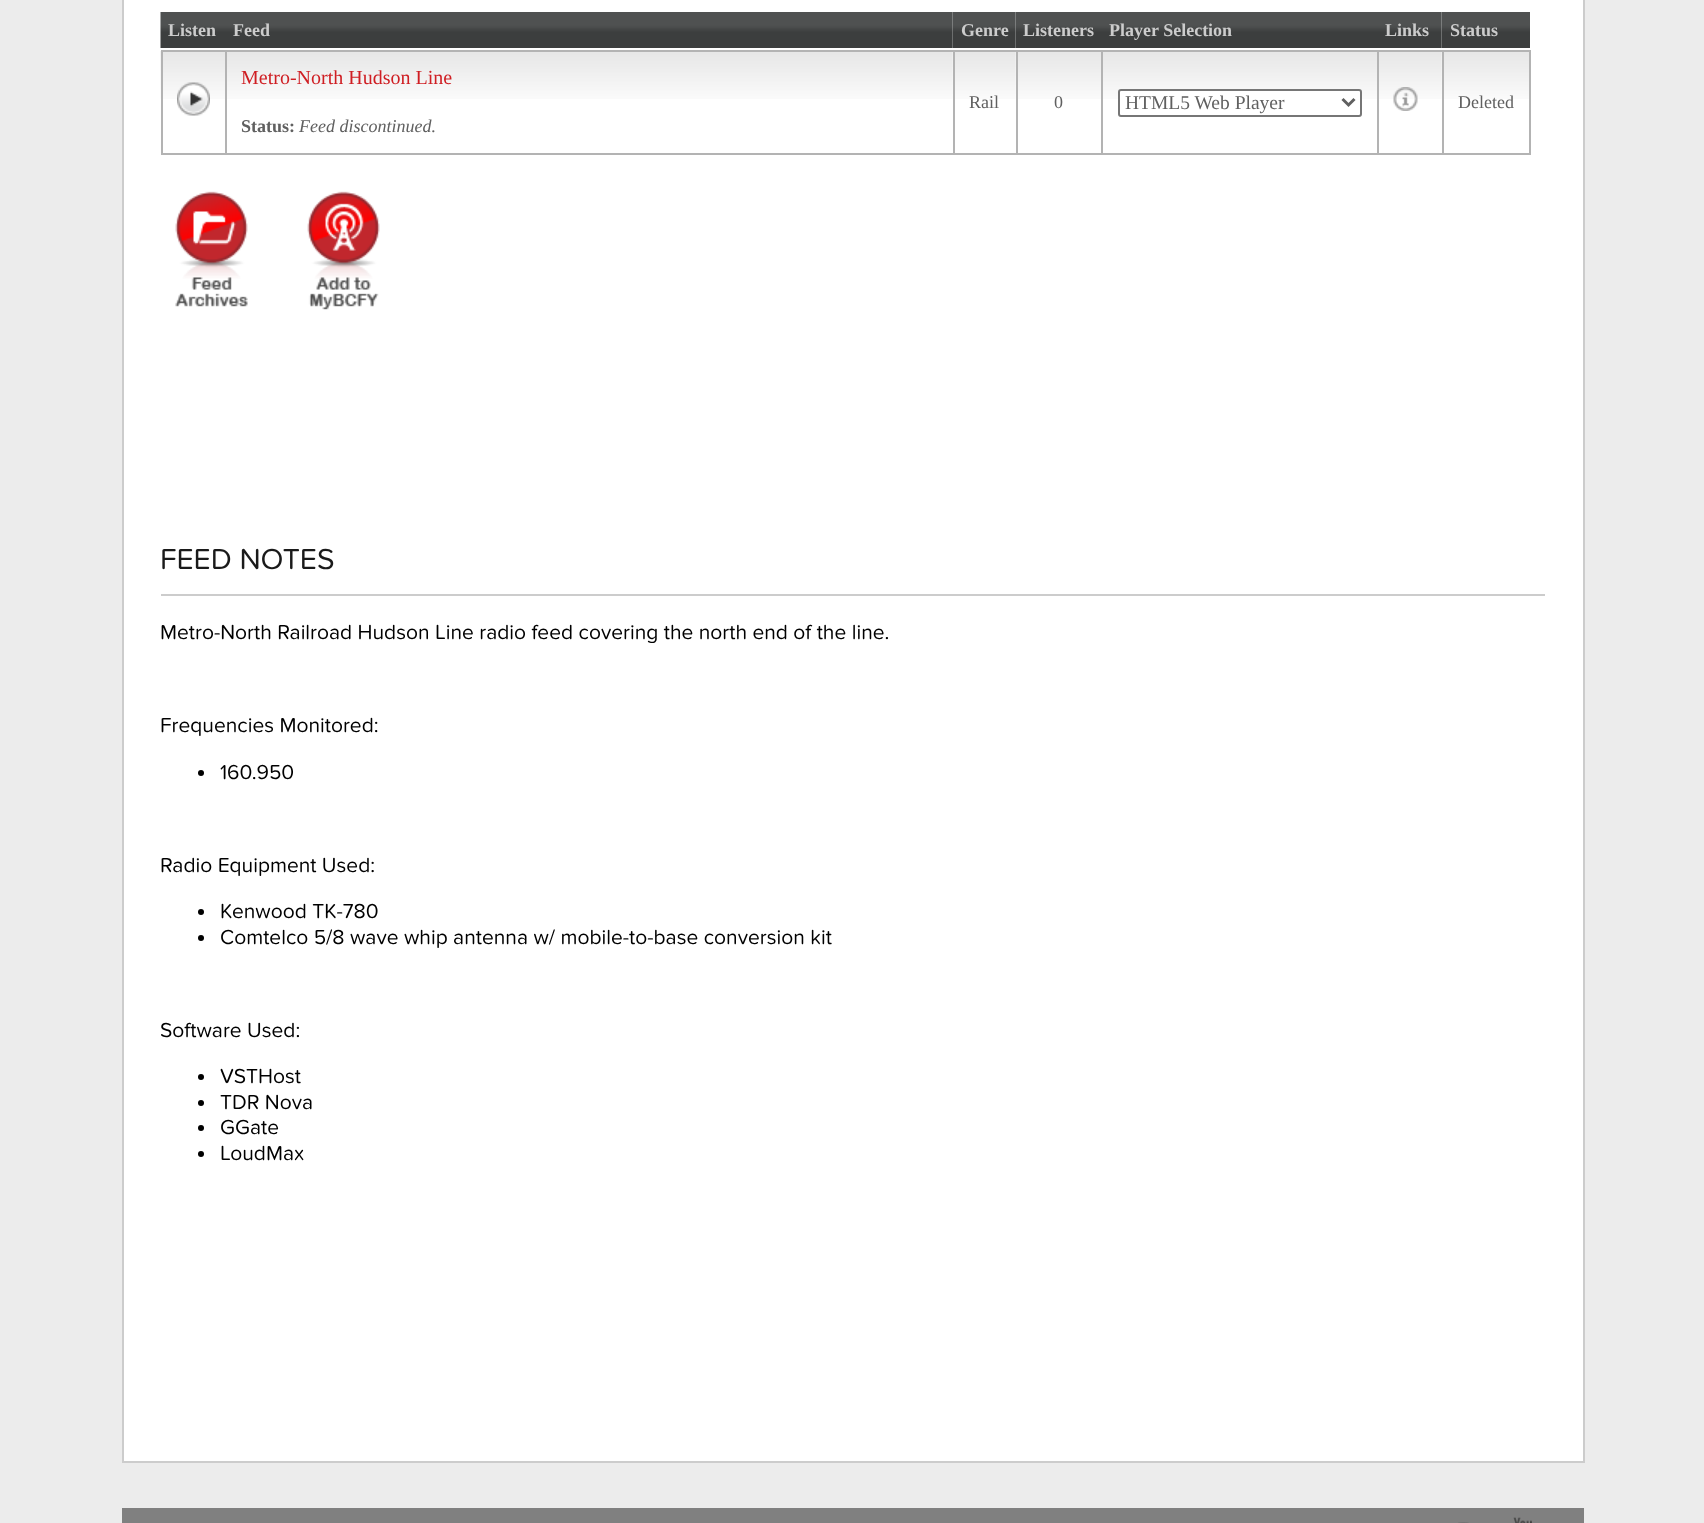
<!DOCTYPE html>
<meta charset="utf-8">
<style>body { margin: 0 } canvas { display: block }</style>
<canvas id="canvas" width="1704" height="1523"></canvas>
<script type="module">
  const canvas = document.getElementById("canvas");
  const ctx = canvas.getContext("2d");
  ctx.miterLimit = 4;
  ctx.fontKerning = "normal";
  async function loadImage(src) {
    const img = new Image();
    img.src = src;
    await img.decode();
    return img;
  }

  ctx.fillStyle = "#ececec";
  ctx.fillRect(0, 0, 1704, 1523);
  ctx.fillStyle = "#ffffff";
  ctx.fillRect(124, 0, 1459, 1461);
  ctx.fillStyle = "#cccccc";
  ctx.fillRect(1583, 0, 2, 1463);
  ctx.fillRect(122, 1461, 1462, 2);
  ctx.fillRect(122, 0, 2, 1463);
  ctx.drawImage(await loadImage("img1.png"), 160, 12, 65, 36);
  ctx.font = "bold 18px Liberation Serif";
  ctx.fillText("Listen", 168, 36);
  ctx.drawImage(await loadImage("img2.png"), 225, 12, 728, 36);
  ctx.fillText("Feed", 233, 36);
  ctx.drawImage(await loadImage("img3.png"), 952, 12, 64, 36);
  ctx.fillText("Genre", 961, 36);
  ctx.drawImage(await loadImage("img4.png"), 1015, 12, 86, 36);
  ctx.fillText("Listeners", 1023, 36);
  ctx.drawImage(await loadImage("img5.png"), 1101, 12, 276, 36);
  ctx.fillText("Player Selection", 1109, 36);
  ctx.drawImage(await loadImage("img6.png"), 1377, 12, 65, 36);
  ctx.fillText("Links", 1385, 36);
  ctx.drawImage(await loadImage("img7.png"), 1441, 12, 89, 36);
  ctx.fillText("Status", 1450, 36);
  ctx.drawImage(await loadImage("img8.png"), 160, 51, 65, 48);
  ctx.fillStyle = "#b3b3b3";
  ctx.fillRect(1442, 50, 88, 2);
  ctx.drawImage(await loadImage("img14.png"), 1379, 52, 63, 47);
  ctx.drawImage(await loadImage("img16.png"), 1441, 52, 88, 47);
  ctx.fillRect(1529, 50, 2, 105);
  ctx.fillRect(1442, 153, 88, 2);
  ctx.fillRect(1442, 50, 2, 105);
  ctx.fillRect(1377, 50, 66, 2);
  ctx.fillRect(1377, 153, 66, 2);
  ctx.fillRect(1377, 50, 2, 105);
  ctx.fillRect(1101, 50, 278, 2);
  ctx.fillRect(1101, 153, 278, 2);
  ctx.fillRect(1101, 50, 2, 105);
  ctx.fillRect(1016, 50, 87, 2);
  ctx.drawImage(await loadImage("img10.png"), 227, 52, 726, 47);
  ctx.drawImage(await loadImage("img11.png"), 952, 52, 64, 47);
  ctx.drawImage(await loadImage("img12.png"), 1015, 52, 86, 47);
  ctx.fillRect(1016, 153, 87, 2);
  ctx.fillRect(1016, 50, 2, 105);
  ctx.fillRect(953, 50, 64, 2);
  ctx.fillRect(953, 153, 64, 2);
  ctx.fillRect(953, 50, 2, 105);
  ctx.fillRect(225, 50, 729, 2);
  ctx.fillRect(225, 153, 729, 2);
  ctx.fillRect(225, 50, 2, 105);
  ctx.fillRect(161, 50, 66, 2);
  ctx.fillRect(161, 153, 66, 2);
  ctx.fillRect(161, 50, 2, 105);
  ctx.drawImage(await loadImage("img9.png"), 177, 82, 33, 34);
  ctx.font = "20px Liberation Serif";
  ctx.fillStyle = "#cf1e23";
  ctx.fillText("Metro-North Hudson Line", 241, 84);
  ctx.font = "bold 18px Liberation Serif";
  ctx.fillStyle = "#606060";
  ctx.fillText("Status:", 241, 132);
  ctx.font = "italic 18px Liberation Serif";
  ctx.fillText("Feed discontinued.", 299, 132);
  ctx.font = "18px Liberation Serif";
  ctx.fillText("Rail", 969, 108);
  ctx.fillText("0", 1054, 108);
  ctx.drawImage(await loadImage("img13.png"), 1103, 52, 274, 47);
  ctx.fillStyle = "#ffffff";
  ctx.beginPath();
  ctx.roundRect(1119, 90, 242, 26, 2);
  ctx.fill();
  ctx.strokeStyle = "#767676";
  ctx.lineWidth = 2;
  ctx.stroke();
  ctx.beginPath();
  ctx.moveTo(1342.5, 99);
  ctx.lineTo(1348.5, 105);
  ctx.lineTo(1354.5, 99);
  ctx.strokeStyle = "#606060";
  ctx.lineWidth = 3;
  ctx.stroke();
  ctx.font = "19.5px Liberation Serif";
  ctx.fillStyle = "#606060";
  ctx.fillText("HTML5 Web Player", 1125, 109);
  ctx.drawImage(await loadImage("img15.png"), 1393, 87, 25, 24);
  ctx.font = "18px Liberation Serif";
  ctx.fillText("Deleted", 1458, 108);
  ctx.drawImage(await loadImage("img17.png"), 175, 191, 73, 116);
  ctx.drawImage(await loadImage("img18.png"), 307, 191, 73, 119);
  ctx.fillStyle = "#cccccc";
  ctx.fillRect(161, 594, 1384, 2);
  ctx.font = "30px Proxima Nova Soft";
  ctx.fillStyle = "#1a1a1a";
  ctx.fillText("FEED NOTES", 160, 569);
  ctx.font = "21px Proxima Nova Soft";
  ctx.fillStyle = "#000000";
  ctx.fillText("Metro-North Railroad Hudson Line radio feed covering the north end of the line.", 160, 639);
  ctx.fillText("Frequencies Monitored:", 160, 732);
  ctx.beginPath();
  ctx.arc(201, 773, 3, 0, Math.PI * 2);
  ctx.fill();
  ctx.fillText("160.950", 220, 779);
  ctx.fillText("Radio Equipment Used:", 160, 872);
  ctx.beginPath();
  ctx.arc(201, 912, 3, 0, Math.PI * 2);
  ctx.fill();
  ctx.fillText("Kenwood TK-780", 220, 918);
  ctx.beginPath();
  ctx.arc(201, 938, 3, 0, Math.PI * 2);
  ctx.fill();
  ctx.fillText("Comtelco 5/8 wave whip antenna w/ mobile-to-base conversion kit", 220, 944);
  ctx.fillText("Software Used:", 160, 1037);
  ctx.beginPath();
  ctx.arc(201, 1077, 3, 0, Math.PI * 2);
  ctx.fill();
  ctx.fillText("VSTHost", 220, 1083);
  ctx.beginPath();
  ctx.arc(201, 1103, 3, 0, Math.PI * 2);
  ctx.fill();
  ctx.fillText("TDR Nova", 220, 1109);
  ctx.beginPath();
  ctx.arc(201, 1128, 3, 0, Math.PI * 2);
  ctx.fill();
  ctx.fillText("GGate", 220, 1134);
  ctx.beginPath();
  ctx.arc(201, 1154, 3, 0, Math.PI * 2);
  ctx.fill();
  ctx.fillText("LoudMax", 220, 1160);
  ctx.fillStyle = "#808080";
  ctx.fillRect(122, 1508, 1462, 15);
  ctx.drawImage(await loadImage("img19.png"), 1458, 1522, 11, 1);
  ctx.drawImage(await loadImage("img20.png"), 1513, 1517, 19, 6);
</script>
